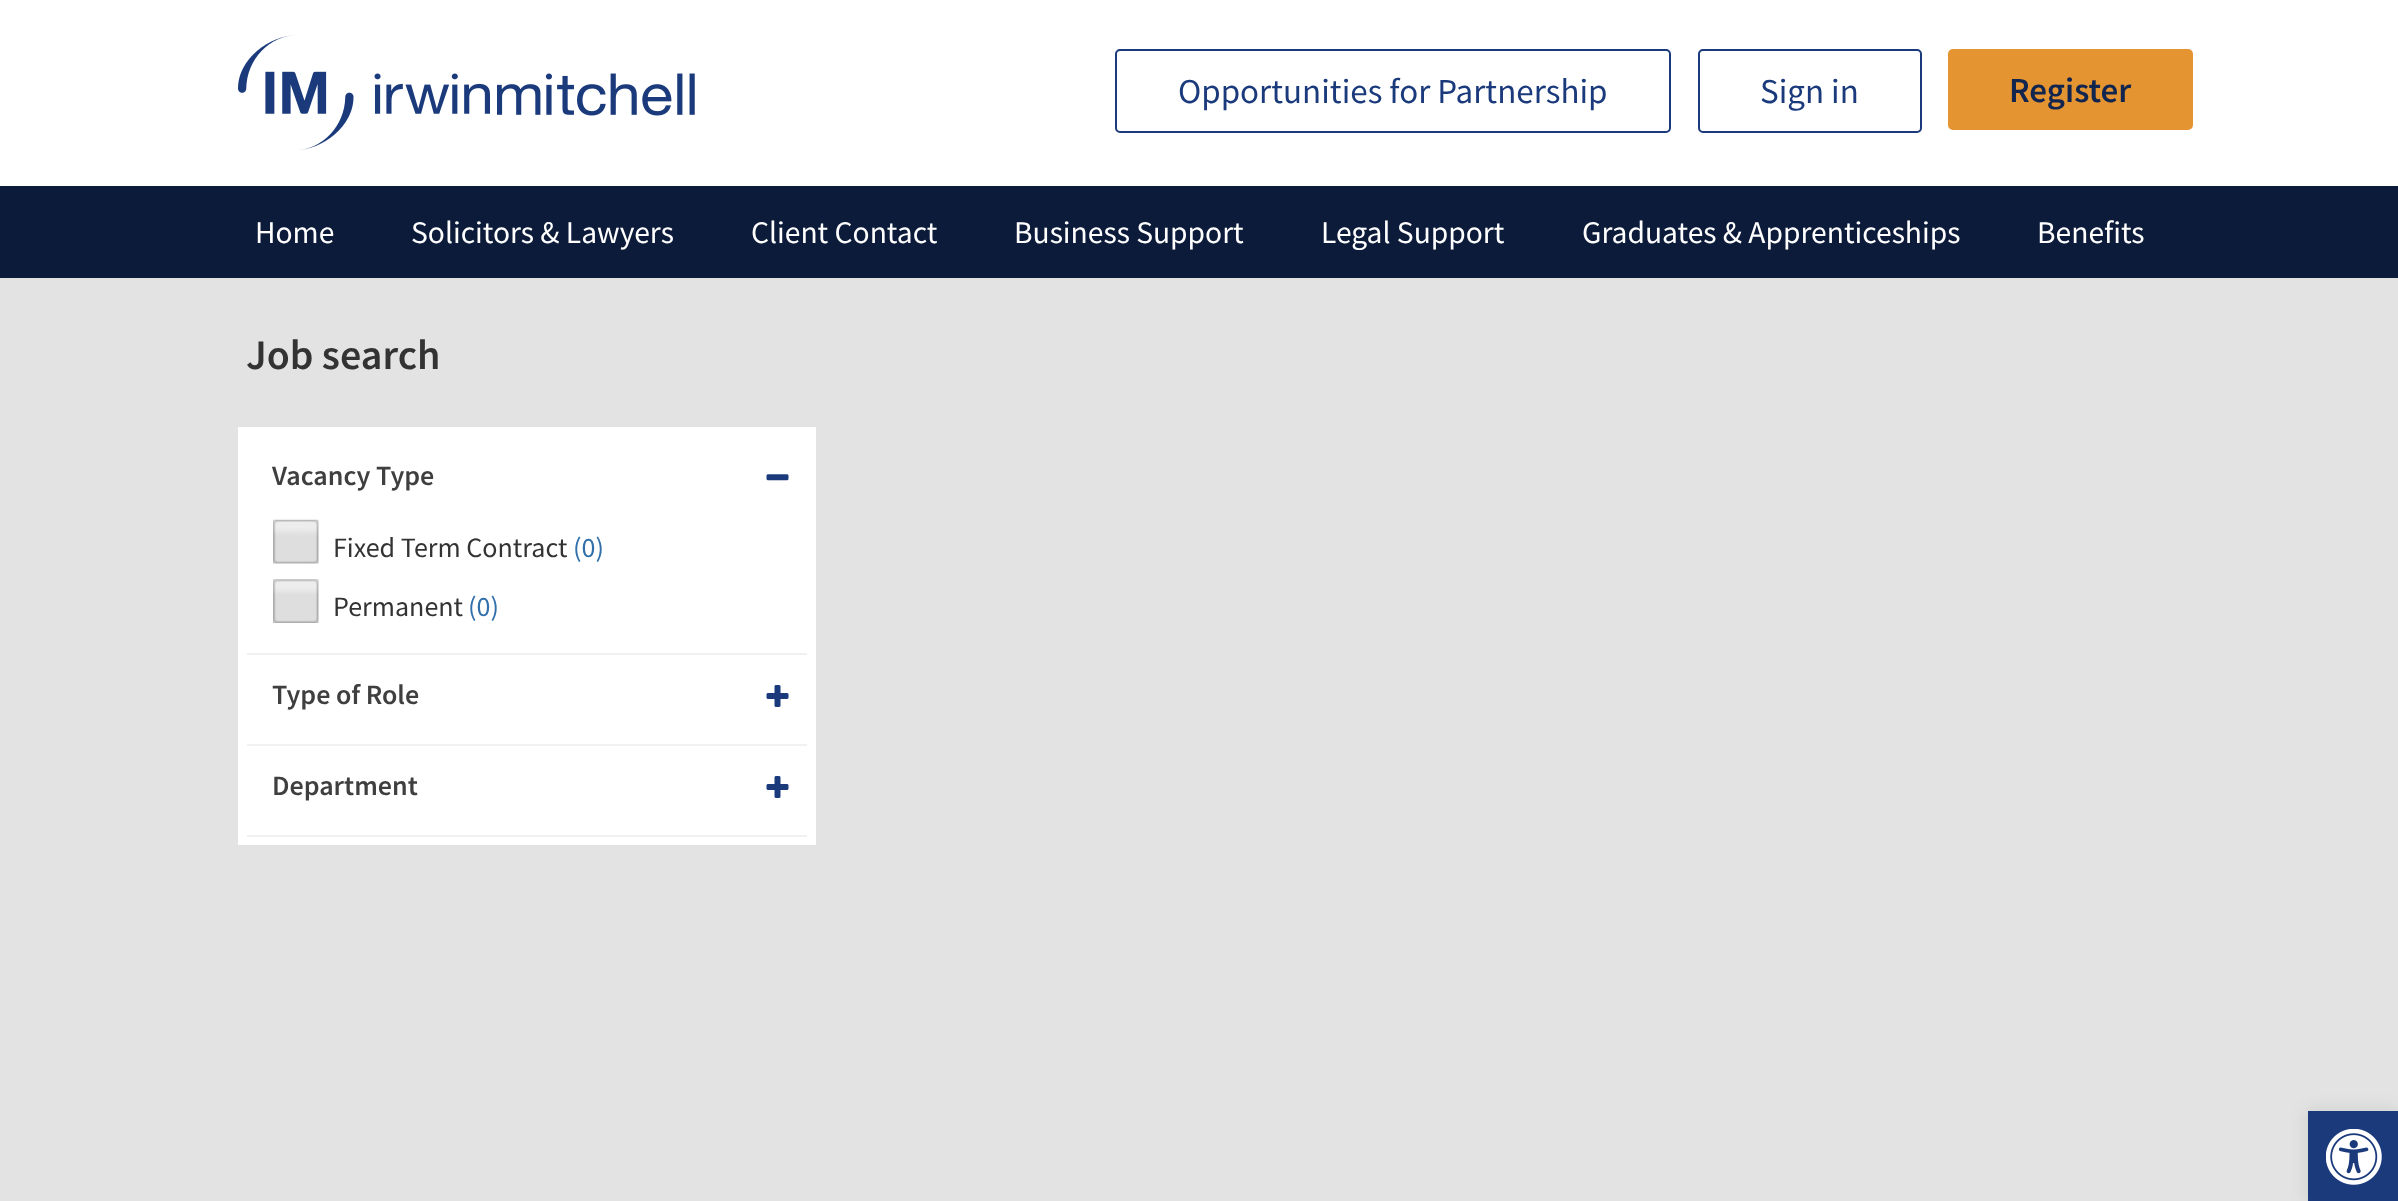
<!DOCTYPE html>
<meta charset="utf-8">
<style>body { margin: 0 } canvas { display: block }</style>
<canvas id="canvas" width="2398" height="1201"></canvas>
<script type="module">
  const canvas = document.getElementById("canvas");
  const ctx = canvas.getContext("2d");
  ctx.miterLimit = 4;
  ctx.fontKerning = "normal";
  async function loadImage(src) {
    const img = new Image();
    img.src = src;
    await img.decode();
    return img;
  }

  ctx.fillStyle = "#e3e3e3";
  ctx.fillRect(0, 0, 2398, 1201);
  ctx.fillStyle = "#ffffff";
  ctx.fillRect(0, 0, 2398, 186);
  ctx.drawImage(await loadImage("img1.png"), 238, 35, 457, 115);
  ctx.beginPath();
  ctx.roundRect(1116, 50, 554, 82, 4);
  ctx.strokeStyle = "#1a3a7c";
  ctx.lineWidth = 2;
  ctx.stroke();
  ctx.font = "35px Source Sans Pro";
  ctx.fillStyle = "#1a3a7c";
  ctx.fillText("Opportunities for Partnership", 1178, 103);
  ctx.beginPath();
  ctx.roundRect(1699, 50, 222, 82, 4);
  ctx.stroke();
  ctx.fillText("Sign in", 1760, 103);
  ctx.fillStyle = "#e49431";
  ctx.beginPath();
  ctx.roundRect(1948, 49, 245, 81, 5);
  ctx.fill();
  ctx.font = "600 35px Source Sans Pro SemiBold";
  ctx.fillStyle = "#11254f";
  ctx.fillText("Register", 2009, 102);
  ctx.fillStyle = "#0c1b39";
  ctx.fillRect(0, 186, 2398, 92);
  ctx.font = "31.5px Source Sans Pro";
  ctx.fillStyle = "#ffffff";
  ctx.fillText("Home", 255, 243);
  ctx.fillText("Solicitors & Lawyers", 411, 243);
  ctx.fillText("Client Contact", 751, 243);
  ctx.fillText("Business Support", 1014, 243);
  ctx.fillText("Legal Support", 1321, 243);
  ctx.fillText("Graduates & Apprenticeships", 1582, 243);
  ctx.fillText("Benefits", 2037, 243);
  ctx.font = "600 42px Source Sans Pro SemiBold";
  ctx.fillStyle = "#333333";
  ctx.fillText("Job search", 246, 369);
  ctx.fillStyle = "#ffffff";
  ctx.fillRect(238, 427, 578, 418);
  ctx.fillStyle = "#f2f1f1";
  ctx.fillRect(247, 653, 560, 2);
  ctx.font = "600 28px Source Sans Pro SemiBold";
  ctx.fillStyle = "#3f3f3f";
  ctx.fillText("Vacancy Type", 272, 485);
  ctx.drawImage(await loadImage("img2.png"), 766, 474, 23, 7);
  ctx.drawImage(await loadImage("img3.png"), 273, 519, 46, 45);
  ctx.font = "28px Source Sans Pro";
  ctx.fillStyle = "#333333";
  ctx.fillText("Fixed Term Contract", 333, 557);
  ctx.fillStyle = "#3170aa";
  ctx.fillText("(0)", 573, 557);
  ctx.drawImage(await loadImage("img4.png"), 273, 579, 46, 44);
  ctx.fillStyle = "#333333";
  ctx.fillText("Permanent", 333, 616);
  ctx.fillStyle = "#3170aa";
  ctx.fillText("(0)", 468, 616);
  ctx.fillStyle = "#f2f1f1";
  ctx.fillRect(247, 744, 560, 2);
  ctx.font = "600 28px Source Sans Pro SemiBold";
  ctx.fillStyle = "#3f3f3f";
  ctx.fillText("Type of Role", 272, 704);
  ctx.drawImage(await loadImage("img5.png"), 766, 685, 23, 22);
  ctx.fillStyle = "#f2f1f1";
  ctx.fillRect(247, 835, 560, 2);
  ctx.fillStyle = "#3f3f3f";
  ctx.fillText("Department", 272, 795);
  ctx.drawImage(await loadImage("img5.png"), 766, 776, 23, 22);
  ctx.fillStyle = "rgba(0, 0, 0, 0.1)";
  ctx.filter = "blur(9px)";
  ctx.beginPath();
  ctx.rect(2308, 1111, 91, 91);
  ctx.fill();
  ctx.filter = "none";
  ctx.fillStyle = "#1a3a7c";
  ctx.fillRect(2308, 1111, 90, 90);
  ctx.drawImage(await loadImage("img6.png"), 2326, 1129, 56, 56);
</script>
